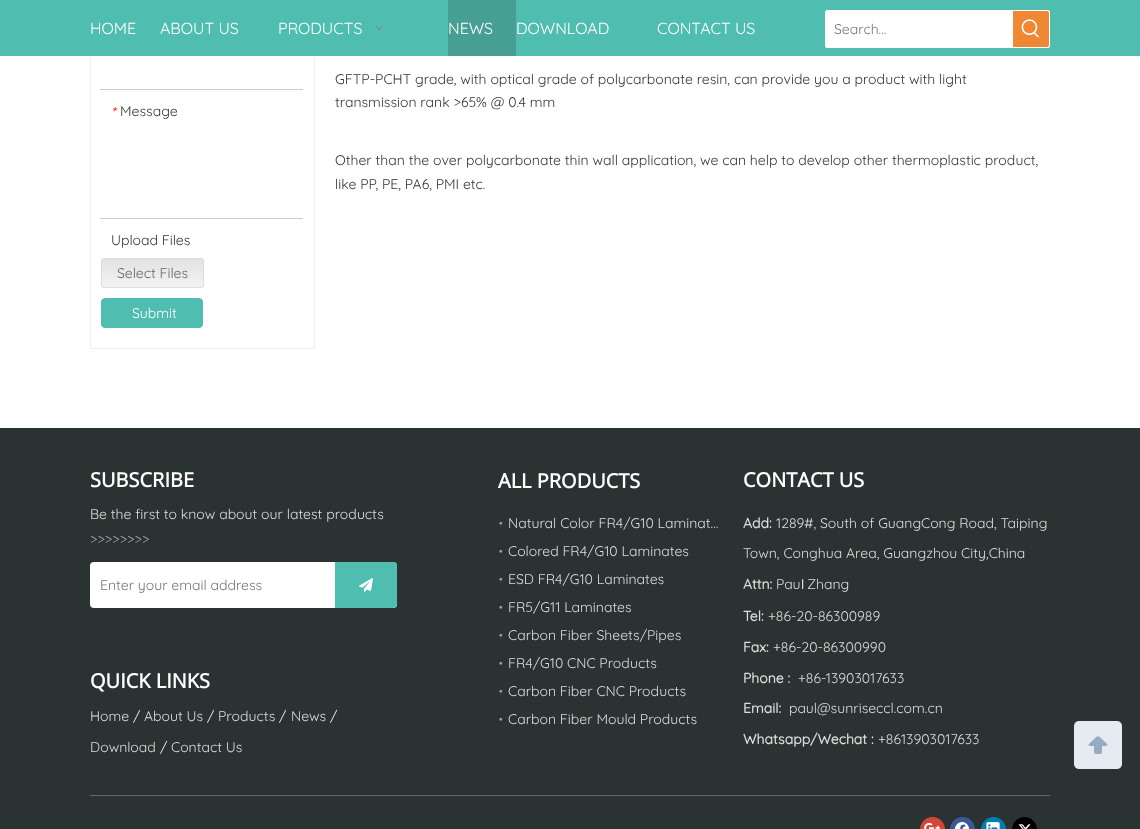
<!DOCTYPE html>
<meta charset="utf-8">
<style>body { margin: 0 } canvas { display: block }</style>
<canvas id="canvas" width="1140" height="829"></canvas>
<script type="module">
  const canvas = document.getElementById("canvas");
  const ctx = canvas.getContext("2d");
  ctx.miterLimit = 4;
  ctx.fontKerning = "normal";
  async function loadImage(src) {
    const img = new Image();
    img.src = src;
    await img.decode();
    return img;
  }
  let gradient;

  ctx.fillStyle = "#ffffff";
  ctx.fillRect(0, 0, 1140, 829);
  ctx.strokeStyle = "#eeeeee";
  ctx.strokeRect(90.5, -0.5, 224, 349);
  ctx.fillStyle = "#4fbeb0";
  ctx.fillRect(0, 0, 1140, 56);
  ctx.font = "300 16px Quicksand";
  ctx.fillStyle = "#ffffff";
  ctx.fillText("HOME", 90, 34);
  ctx.fillText("ABOUT US", 160, 34);
  ctx.fillText("PRODUCTS", 278, 34);
  ctx.drawImage(await loadImage("img1.png"), 376, 26, 7, 4);
  ctx.fillStyle = "#479e93";
  ctx.fillRect(448, 0, 68, 56);
  ctx.fillStyle = "#ffffff";
  ctx.fillText("NEWS", 448, 34);
  ctx.fillText("DOWNLOAD", 516, 34);
  ctx.fillText("CONTACT US", 657, 34);
  ctx.beginPath();
  ctx.roundRect(825.5, 10.5, 224, 37, 1.5);
  ctx.fill();
  ctx.strokeStyle = "#ffffff";
  ctx.stroke();
  ctx.font = "300 14px Quicksand";
  ctx.fillStyle = "#757575";
  ctx.fillText("Search...", 834, 34);
  ctx.fillStyle = "#ef8733";
  ctx.beginPath();
  ctx.roundRect(1013, 11, 36, 36, [0, 2, 2, 0]);
  ctx.fill();
  ctx.drawImage(await loadImage("img2.png"), 1021, 19, 18, 19);
  ctx.fillStyle = "#cccccc";
  ctx.fillRect(100, 89, 203, 1);
  ctx.font = "italic 300 14px Quicksand";
  ctx.fillStyle = "#ff0000";
  ctx.fillText("*", 111, 117);
  ctx.font = "300 14px Quicksand";
  ctx.fillStyle = "#333333";
  ctx.fillText("Message", 120, 116);
  ctx.fillStyle = "#cccccc";
  ctx.fillRect(100, 218, 203, 1);
  ctx.fillStyle = "#333333";
  ctx.fillText("Upload Files", 111, 245);
  ctx.save();
  ctx.beginPath();
  ctx.roundRect(101, 258, 103, 30, 3);
  ctx.clip();
  gradient = ctx.createLinearGradient(153, 259, 153, 287);
  gradient.addColorStop(0, "#e2e2e2");
  gradient.addColorStop(1, "#f3f3f3");
  ctx.fillStyle = gradient;
  ctx.fillRect(101, 259, 103, 28);
  ctx.restore();
  ctx.beginPath();
  ctx.roundRect(101.5, 258.5, 102, 29, 2.5);
  ctx.strokeStyle = "#dddddd";
  ctx.stroke();
  ctx.fillStyle = "#666666";
  ctx.fillText("Select Files", 117, 278);
  ctx.fillStyle = "#4fbeb0";
  ctx.beginPath();
  ctx.roundRect(101.5, 298.5, 101, 29, 3.5);
  ctx.fill();
  ctx.strokeStyle = "#4fbeb0";
  ctx.stroke();
  ctx.fillStyle = "#ffffff";
  ctx.fillText("Submit", 132, 318);
  ctx.fillStyle = "#333333";
  ctx.fillText("GFTP-PCHT grade, with optical grade of polycarbonate resin, can provide you a product with light", 335, 84);
  ctx.fillText("transmission rank >65% @ 0.4 mm", 335, 107);
  ctx.fillText("Other than the over polycarbonate thin wall application, we can help to develop other thermoplastic product,", 335, 165);
  ctx.fillText("like PP, PE, PA6, PMI etc.", 335, 189);
  ctx.fillStyle = "#2b3332";
  ctx.fillRect(0, 428, 1140, 401);
  ctx.font = "bold 20px Open Sans";
  ctx.fillStyle = "#ffffff";
  ctx.fillText("SUBSCRIBE", 90, 487);
  ctx.font = "300 14px Quicksand";
  ctx.fillStyle = "#dddddd";
  ctx.fillText("Be the first to know about our latest products", 90, 519);
  ctx.fillStyle = "#a9a9a9";
  ctx.fillText(">>>>>>>>", 90, 544);
  ctx.fillStyle = "#ffffff";
  ctx.beginPath();
  ctx.roundRect(90, 562, 307, 46, 4);
  ctx.fill();
  ctx.fillStyle = "#757575";
  ctx.fillText("Enter your email address", 100, 590);
  ctx.fillStyle = "#4fbeb0";
  ctx.beginPath();
  ctx.roundRect(335, 562, 62, 46, [0, 4, 4, 0]);
  ctx.fill();
  ctx.drawImage(await loadImage("img3.png"), 359, 578, 14, 14);
  ctx.font = "bold 20px Open Sans";
  ctx.fillStyle = "#ffffff";
  ctx.fillText("QUICK LINKS", 90, 688);
  ctx.font = "300 14px Quicksand";
  ctx.fillStyle = "#dddddd";
  ctx.fillText("Home", 90, 721);
  ctx.fillStyle = "#eeeeee";
  ctx.fillText("/", 133, 721);
  ctx.fillStyle = "#dddddd";
  ctx.fillText("About Us", 144, 721);
  ctx.fillStyle = "#eeeeee";
  ctx.fillText("/", 207, 721);
  ctx.fillStyle = "#dddddd";
  ctx.fillText("Products", 218, 721);
  ctx.fillStyle = "#eeeeee";
  ctx.fillText("/", 279, 721);
  ctx.fillStyle = "#dddddd";
  ctx.fillText("News", 291, 721);
  ctx.fillStyle = "#eeeeee";
  ctx.fillText("/", 330, 721);
  ctx.fillStyle = "#dddddd";
  ctx.fillText("Download", 90, 752);
  ctx.fillStyle = "#eeeeee";
  ctx.fillText("/", 160, 752);
  ctx.fillStyle = "#dddddd";
  ctx.fillText("Contact Us", 171, 752);
  ctx.font = "bold 20px Open Sans";
  ctx.fillStyle = "#ffffff";
  ctx.fillText("ALL PRODUCTS", 498, 488);
  ctx.drawImage(await loadImage("img4.png"), 499, 521, 4, 4);
  ctx.font = "300 14px Quicksand";
  ctx.fillStyle = "#dddddd";
  ctx.fillText("Natural Color FR4/G10 Laminat…", 508, 528);
  ctx.drawImage(await loadImage("img4.png"), 499, 549, 4, 4);
  ctx.fillText("Colored FR4/G10 Laminates", 508, 556);
  ctx.drawImage(await loadImage("img4.png"), 499, 577, 4, 4);
  ctx.fillText("ESD FR4/G10 Laminates", 508, 584);
  ctx.drawImage(await loadImage("img4.png"), 499, 605, 4, 4);
  ctx.fillText("FR5/G11 Laminates", 508, 612);
  ctx.drawImage(await loadImage("img4.png"), 499, 633, 4, 4);
  ctx.fillText("Carbon Fiber Sheets/Pipes", 508, 640);
  ctx.drawImage(await loadImage("img4.png"), 499, 661, 4, 4);
  ctx.fillText("FR4/G10 CNC Products", 508, 668);
  ctx.drawImage(await loadImage("img4.png"), 499, 689, 4, 4);
  ctx.fillText("Carbon Fiber CNC Products", 508, 696);
  ctx.drawImage(await loadImage("img4.png"), 499, 717, 4, 4);
  ctx.fillText("Carbon Fiber Mould Products", 508, 724);
  ctx.font = "bold 20px Open Sans";
  ctx.fillStyle = "#ffffff";
  ctx.fillText("CONTACT US", 743, 487);
  ctx.font = "bold 14px Quicksand";
  ctx.fillStyle = "#dddddd";
  ctx.fillText("Add:", 743, 528);
  ctx.font = "300 14px Quicksand";
  ctx.fillText("1289#, South of GuangCong Road, Taiping", 776, 528);
  ctx.fillText("Town, Conghua Area, Guangzhou City,China", 743, 558);
  ctx.font = "bold 14px Quicksand";
  ctx.fillText("Attn:", 743, 589);
  ctx.font = "300 14px Quicksand";
  ctx.fillText("Pau", 776, 589);
  ctx.font = "14px Carlito";
  ctx.fillText("l", 801, 589);
  ctx.font = "300 14px Quicksand";
  ctx.fillText("Zhang", 807, 589);
  ctx.font = "bold 14px Quicksand";
  ctx.fillText("Tel:", 743, 621);
  ctx.font = "300 14px Quicksand";
  ctx.fillText("+86-20-86300989", 768, 621);
  ctx.font = "bold 14px Quicksand";
  ctx.fillText("Fax:", 743, 652);
  ctx.font = "300 14px Quicksand";
  ctx.fillText("+86-20-86300990", 773, 652);
  ctx.font = "bold 14px Quicksand";
  ctx.fillText("Phone :", 743, 683);
  ctx.font = "300 14px Quicksand";
  ctx.fillText("+86-13903017633", 798, 683);
  ctx.font = "bold 14px Quicksand";
  ctx.fillText("Email:", 743, 713);
  ctx.font = "300 14px Quicksand";
  ctx.fillText("paul@sunriseccl.com.cn", 789, 713);
  ctx.font = "bold 14px Quicksand";
  ctx.fillText("Whatsapp/Wechat :", 743, 744);
  ctx.font = "300 14px Quicksand";
  ctx.fillText("+8613903017633", 878, 744);
  ctx.fillStyle = "#666666";
  ctx.fillRect(90, 795, 960, 1);
  ctx.fillStyle = "#d14836";
  ctx.beginPath();
  ctx.arc(932.5, 829.5, 12.5, 0, Math.PI * 2);
  ctx.fill();
  ctx.drawImage(await loadImage("img5.png"), 924, 823, 16, 6);
  ctx.fillStyle = "#3b5998";
  ctx.beginPath();
  ctx.arc(962.5, 829.5, 12.5, 0, Math.PI * 2);
  ctx.fill();
  ctx.drawImage(await loadImage("img6.png"), 955, 822, 14, 7);
  ctx.fillStyle = "#007fb1";
  ctx.beginPath();
  ctx.arc(993.5, 829.5, 12.5, 0, Math.PI * 2);
  ctx.fill();
  ctx.drawImage(await loadImage("img7.png"), 986, 822, 14, 7);
  ctx.fillStyle = "#000000";
  ctx.beginPath();
  ctx.arc(1024.5, 829.5, 12.5, 0, Math.PI * 2);
  ctx.fill();
  ctx.drawImage(await loadImage("img8.png"), 1018, 824, 13, 5);
  ctx.drawImage(await loadImage("img9.png"), 1074, 721, 48, 48);
</script>
